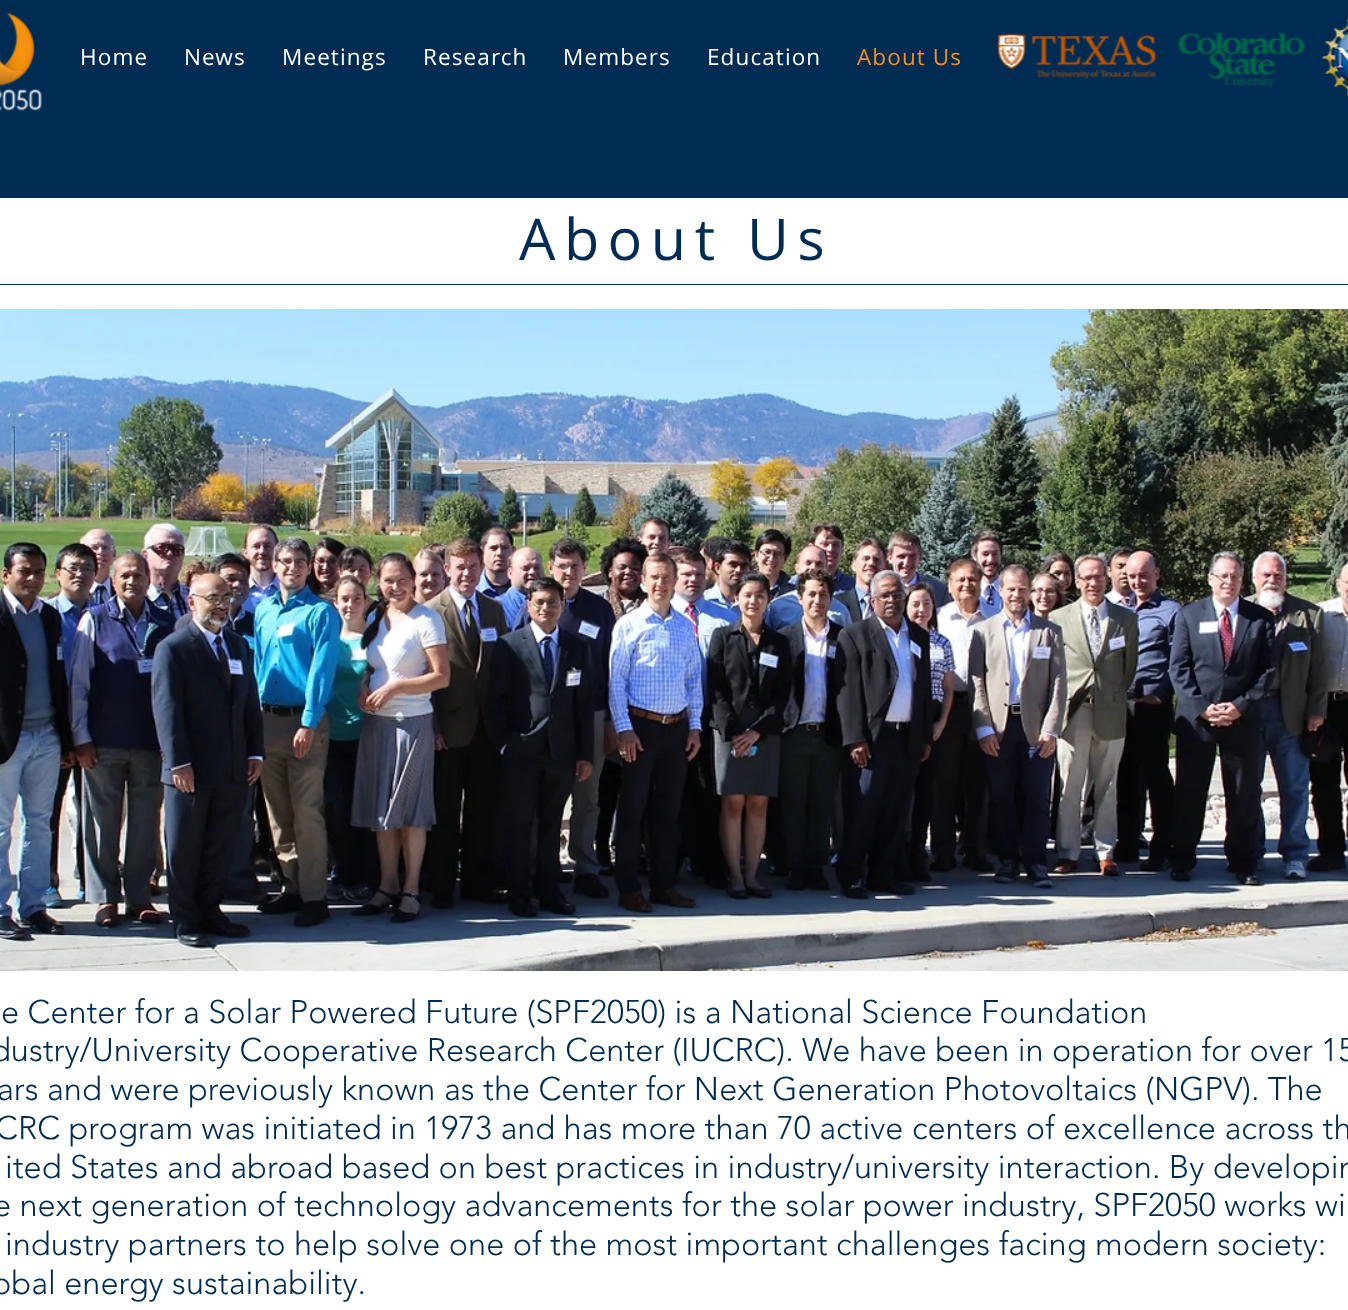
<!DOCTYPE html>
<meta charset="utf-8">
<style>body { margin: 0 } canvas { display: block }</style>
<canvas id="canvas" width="1348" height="1310"></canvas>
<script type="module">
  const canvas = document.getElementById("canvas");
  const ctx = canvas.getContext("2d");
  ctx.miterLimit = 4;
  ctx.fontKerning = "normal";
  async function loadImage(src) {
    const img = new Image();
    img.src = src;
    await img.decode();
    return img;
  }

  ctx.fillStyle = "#ffffff";
  ctx.fillRect(0, 0, 1348, 1310);
  ctx.fillStyle = "#002c54";
  ctx.fillRect(0, 0, 1348, 198);
  ctx.drawImage(await loadImage("img1.png"), 0, 12, 42, 99);
  ctx.letterSpacing = "1.1px";
  ctx.font = "22.5px Open Sans";
  ctx.fillStyle = "#ffffff";
  ctx.fillText("Home", 80, 65);
  ctx.fillText("News", 184, 65);
  ctx.fillText("Meetings", 282, 65);
  ctx.fillText("Research", 423, 65);
  ctx.fillText("Members", 563, 65);
  ctx.fillText("Education", 707, 65);
  ctx.fillStyle = "#f29021";
  ctx.fillText("About Us", 857, 65);
  ctx.drawImage(await loadImage("img2.png"), 998, 33, 159, 46);
  ctx.drawImage(await loadImage("img3.png"), 1178, 32, 127, 56);
  ctx.drawImage(await loadImage("img4.png"), 1322, 19, 26, 78);
  ctx.letterSpacing = "8.5px";
  ctx.font = "57.5px Open Sans";
  ctx.fillStyle = "#002c54";
  ctx.fillText("About Us", 519, 260);
  ctx.fillRect(0, 284, 1348, 1);
  ctx.drawImage(await loadImage("img5.png"), 0, 309, 1348, 662);
  ctx.letterSpacing = "0px";
  ctx.font = "300 32.5px 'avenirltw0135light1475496'";
  ctx.fillText("e Center for a Solar Powered Future (SPF2050) is a National Science Foundation", 1, 1023);
  ctx.fillText("dustry/University Cooperative Research Center (IUCRC). We have been in operation for over 15", -9, 1061);
  ctx.fillText("ars and were previously known as the Center for Next Generation Photovoltaics (NGPV). The", -3, 1100);
  ctx.fillText("CRC program was initiated in 1973 and has more than 70 active centers of excellence across th", -5, 1139);
  ctx.fillText("ited States and abroad based on best practices in industry/university interaction. By developin", 5, 1178);
  ctx.fillText("e next generation of technology advancements for the solar power industry, SPF2050 works wi", -7, 1216);
  ctx.fillText("industry partners to help solve one of the most important challenges facing modern society:", 5, 1255);
  ctx.fillText("obal energy sustainability.", -8, 1294);
</script>
